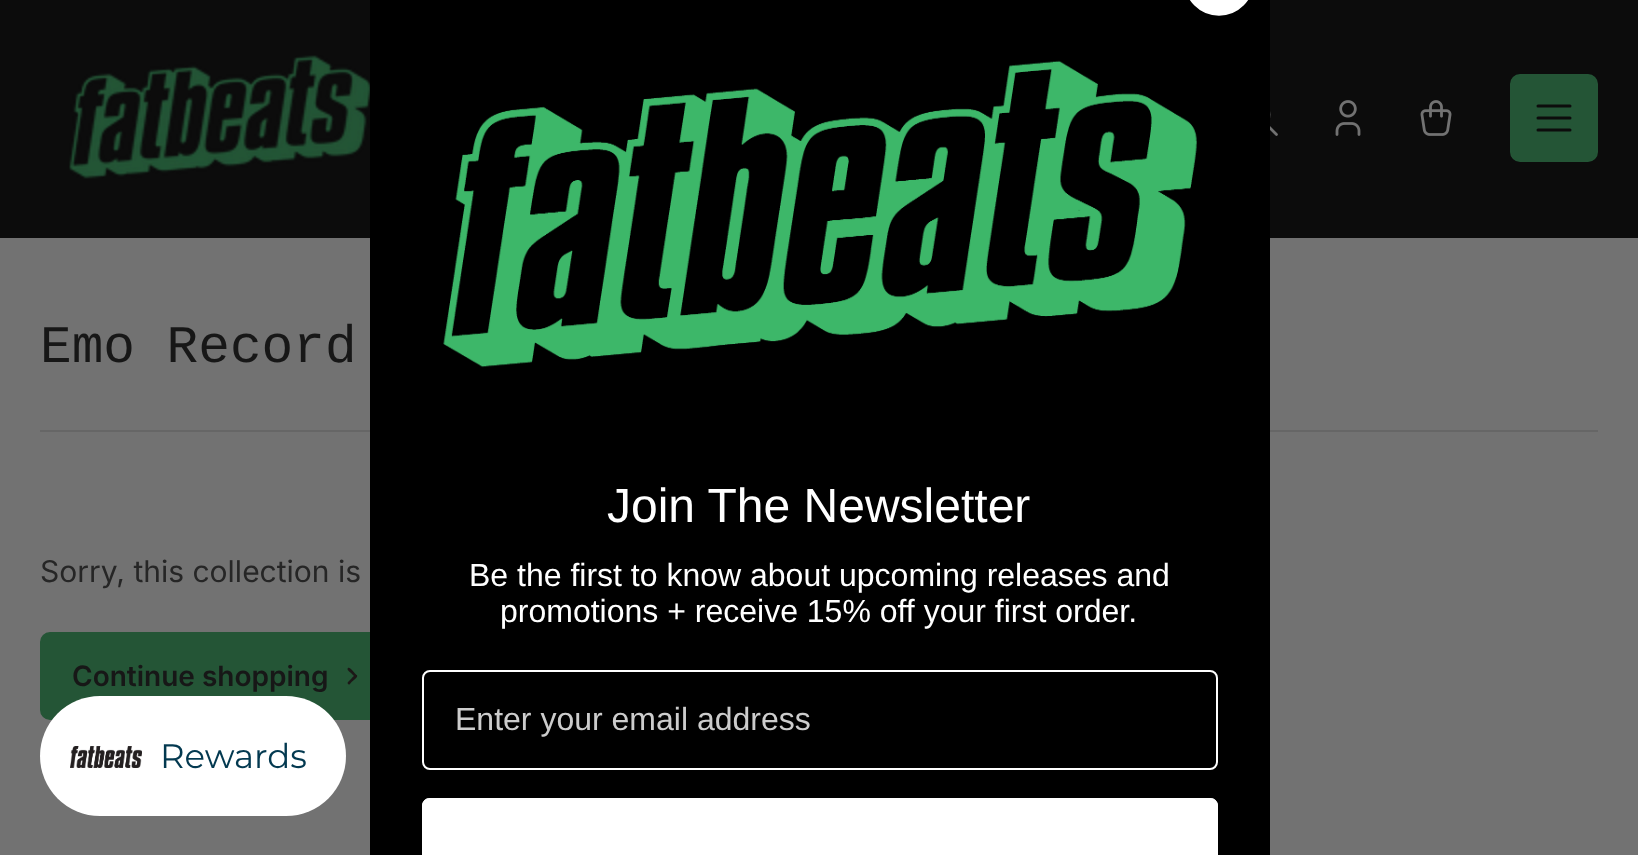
<!DOCTYPE html>
<meta charset="utf-8">
<style>body { margin: 0 } canvas { display: block }</style>
<canvas id="canvas" width="1638" height="855"></canvas>
<script type="module">
  const canvas = document.getElementById("canvas");
  const ctx = canvas.getContext("2d");
  ctx.miterLimit = 4;
  ctx.fontKerning = "normal";
  async function loadImage(src) {
    const img = new Image();
    img.src = src;
    await img.decode();
    return img;
  }

  ctx.fillStyle = "#727272";
  ctx.fillRect(0, 0, 1638, 855);
  ctx.fillStyle = "#0c0c0c";
  ctx.fillRect(0, 0, 1638, 238);
  ctx.drawImage(await loadImage("img1.png"), 69, 55, 301, 124);
  ctx.beginPath();
  ctx.moveTo(1243.5, 114.5);
  ctx.bezierCurveTo(1243.5, 131, 1269, 131, 1269, 114.5);
  ctx.bezierCurveTo(1269, 97.5, 1243.5, 97.5, 1243.5, 114.5);
  ctx.moveTo(1276.5, 134.5);
  ctx.lineTo(1265.5, 123.5);
  ctx.strokeStyle = "#727272";
  ctx.lineWidth = 2.8;
  ctx.lineCap = "round";
  ctx.lineJoin = "round";
  ctx.stroke();
  ctx.drawImage(await loadImage("img2.png"), 1335, 100, 26, 36);
  ctx.drawImage(await loadImage("img3.png"), 1420, 100, 32, 36);
  ctx.fillStyle = "#245536";
  ctx.beginPath();
  ctx.roundRect(1511, 75, 86, 86, 9);
  ctx.fill();
  ctx.strokeStyle = "#245536";
  ctx.lineWidth = 2;
  ctx.lineJoin = "miter";
  ctx.stroke();
  ctx.beginPath();
  ctx.moveTo(1538, 106);
  ctx.lineTo(1570, 106);
  ctx.moveTo(1538, 118);
  ctx.lineTo(1570, 118);
  ctx.moveTo(1538, 130);
  ctx.lineTo(1570, 130);
  ctx.strokeStyle = "#0c0c0c";
  ctx.lineWidth = 3;
  ctx.lineJoin = "round";
  ctx.stroke();
  ctx.fillStyle = "#666666";
  ctx.fillRect(40, 430, 1558, 2);
  ctx.font = "52.75px Liberation Mono";
  ctx.fillStyle = "#171717";
  ctx.fillText("Emo Record", 40, 362);
  ctx.font = "30px Inter";
  ctx.fillStyle = "#262626";
  ctx.fillText("Sorry, this collection is", 40, 582);
  ctx.fillStyle = "#245536";
  ctx.beginPath();
  ctx.roundRect(41, 633, 354, 86, 9);
  ctx.fill();
  ctx.strokeStyle = "#245536";
  ctx.lineWidth = 2;
  ctx.lineJoin = "miter";
  ctx.stroke();
  ctx.font = "600 28px Inter";
  ctx.fillStyle = "#171717";
  ctx.fillText("Continue shopping", 72, 686);
  ctx.fillStyle = "#1c1817";
  ctx.beginPath();
  ctx.moveTo(348, 682);
  ctx.lineTo(351.5, 678.5);
  ctx.bezierCurveTo(352.5, 677.5, 354.5, 674.5, 356, 675);
  ctx.bezierCurveTo(360, 675.5, 352.5, 681.5, 352, 681.5);
  ctx.lineTo(349.5, 684.5);
  ctx.bezierCurveTo(348, 685, 347, 683, 348, 682);
  ctx.closePath();
  ctx.fill();
  ctx.beginPath();
  ctx.moveTo(355, 677);
  ctx.lineTo(351.5, 673.5);
  ctx.bezierCurveTo(350.5, 672.5, 347.5, 670.5, 347.5, 669);
  ctx.bezierCurveTo(348.5, 665, 354, 672.5, 354.5, 673);
  ctx.lineTo(357, 675.5);
  ctx.bezierCurveTo(357.5, 677, 356, 678, 355, 677);
  ctx.closePath();
  ctx.fill();
  ctx.fillStyle = "#000000";
  ctx.fillRect(370, 0, 900, 855);
  ctx.fillStyle = "#ffffff";
  ctx.beginPath();
  ctx.arc(1219, -19, 33, 0, Math.PI * 2);
  ctx.fill();
  ctx.strokeStyle = "#ffffff";
  ctx.lineWidth = 3.5;
  ctx.stroke();
  ctx.drawImage(await loadImage("img4.png"), 443, 60, 754, 308);
  ctx.font = "48px Liberation Sans";
  ctx.fillText("Join The Newsletter", 607, 522);
  ctx.font = "32px Liberation Sans";
  ctx.fillText("Be the first to know about upcoming releases and", 469, 586);
  ctx.fillText("promotions + receive 15% off your first order.", 500, 622);
  ctx.beginPath();
  ctx.roundRect(423, 671, 794, 98, 7);
  ctx.lineWidth = 2;
  ctx.stroke();
  ctx.fillStyle = "#cccccc";
  ctx.fillText("Enter your email address", 455, 730);
  ctx.fillStyle = "#ffffff";
  ctx.beginPath();
  ctx.moveTo(430, 798);
  ctx.lineTo(1210, 798);
  ctx.bezierCurveTo(1214.5, 798, 1218, 801.5, 1218, 806);
  ctx.lineTo(1218, 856);
  ctx.lineTo(422, 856);
  ctx.lineTo(422, 806);
  ctx.bezierCurveTo(422, 801.5, 425.5, 798, 430, 798);
  ctx.closePath();
  ctx.fill();
  ctx.beginPath();
  ctx.roundRect(424, 800, 792, 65, 6);
  ctx.lineWidth = 4;
  ctx.stroke();
  ctx.beginPath();
  ctx.roundRect(40, 696, 306, 120, 60);
  ctx.fill();
  ctx.drawImage(await loadImage("img5.png"), 70, 746, 72, 22);
  ctx.font = "34px Montserrat";
  ctx.fillStyle = "#033950";
  ctx.fillText("Rewards", 160, 768);
</script>
